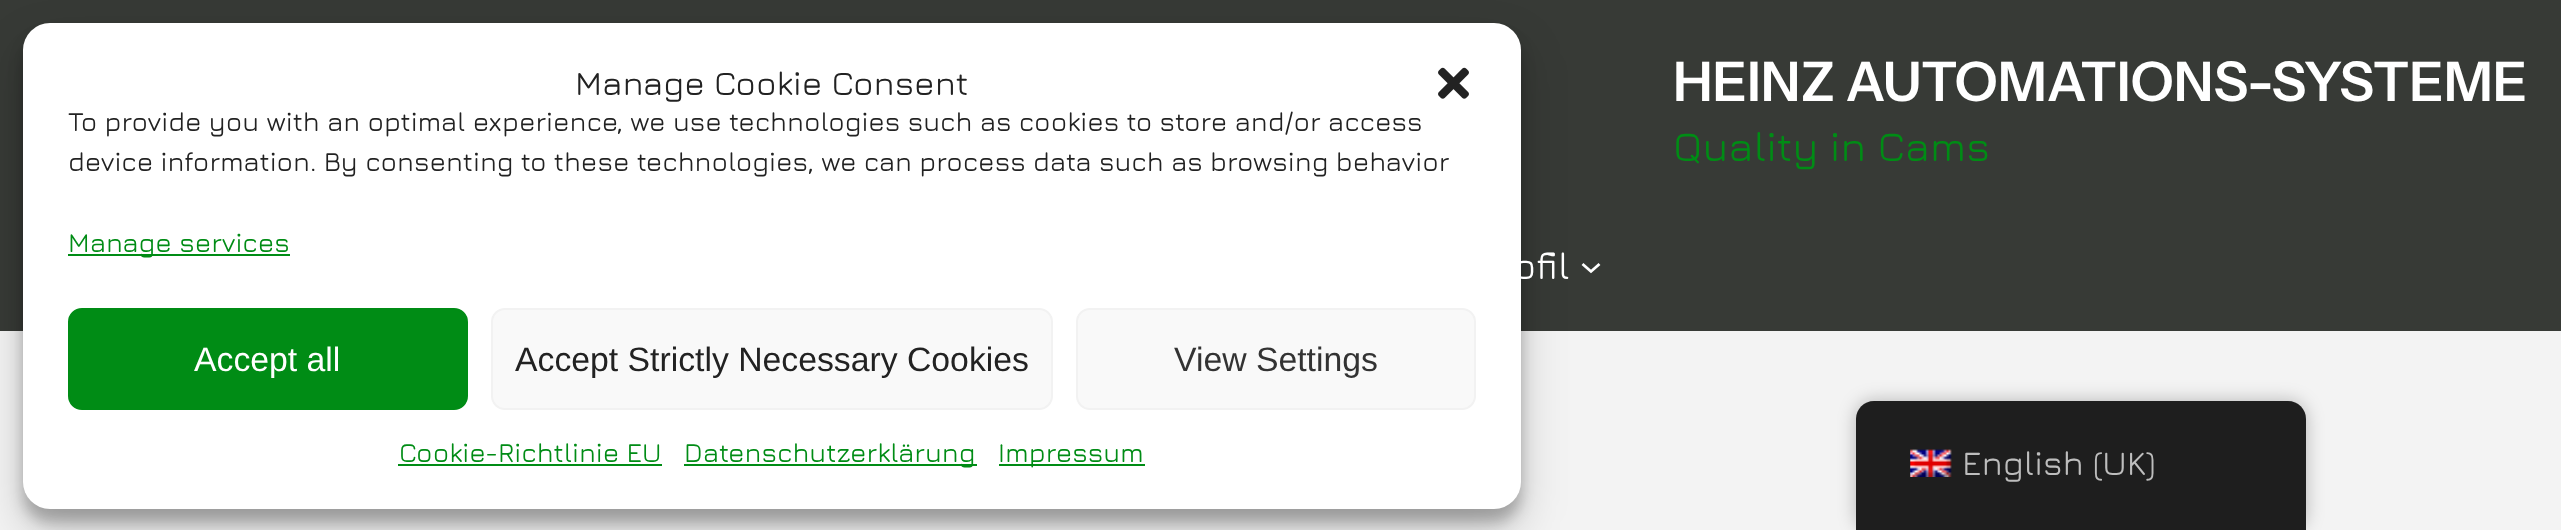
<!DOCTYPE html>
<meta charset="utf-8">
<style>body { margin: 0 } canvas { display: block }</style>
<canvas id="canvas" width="2561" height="530"></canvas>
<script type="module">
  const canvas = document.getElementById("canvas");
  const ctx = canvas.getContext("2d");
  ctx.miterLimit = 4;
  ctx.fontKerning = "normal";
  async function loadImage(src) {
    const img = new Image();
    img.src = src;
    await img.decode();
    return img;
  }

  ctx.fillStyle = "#f3f3f3";
  ctx.fillRect(0, 0, 2561, 530);
  ctx.fillStyle = "#373a36";
  ctx.fillRect(0, 0, 2561, 331);
  ctx.fillStyle = "rgba(0, 0, 0, 0.23)";
  ctx.filter = "blur(7px)";
  ctx.beginPath();
  ctx.roundRect(23, 36, 1498, 486, 27);
  ctx.fill();
  ctx.filter = "none";
  ctx.beginPath();
  ctx.moveTo(1582.5, 264);
  ctx.lineTo(1591, 271.5);
  ctx.lineTo(1599.5, 264);
  ctx.strokeStyle = "#ffffff";
  ctx.lineWidth = 2.8;
  ctx.stroke();
  ctx.fillStyle = "rgba(0, 0, 0, 0.19)";
  ctx.filter = "blur(22.5px)";
  ctx.beginPath();
  ctx.roundRect(23, 45, 1498, 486, 27);
  ctx.fill();
  ctx.filter = "none";
  ctx.fillStyle = "#ffffff";
  ctx.beginPath();
  ctx.roundRect(23, 23, 1498, 486, 27);
  ctx.fill();
  ctx.font = "500 33.75px Jura";
  ctx.fillStyle = "#222222";
  ctx.fillText("Manage Cookie Consent", 575, 95);
  ctx.drawImage(await loadImage("img1.png"), 1438, 67, 31, 32);
  ctx.font = "500 27px Jura";
  ctx.fillText("To provide you with an optimal experience, we use technologies such as cookies to store and/or access", 68, 131);
  ctx.fillText("device information. By consenting to these technologies, we can process data such as browsing behavior", 68, 171);
  ctx.fillStyle = "#008c15";
  ctx.fillRect(68, 254, 222, 2);
  ctx.fillText("Manage services", 68, 252);
  ctx.beginPath();
  ctx.roundRect(69, 309, 398, 100, 13);
  ctx.fill();
  ctx.strokeStyle = "#008c15";
  ctx.lineWidth = 2;
  ctx.stroke();
  ctx.font = "33.75px Liberation Sans";
  ctx.fillStyle = "#ffffff";
  ctx.fillText("Accept all", 194, 371);
  ctx.fillStyle = "#f9f9f9";
  ctx.beginPath();
  ctx.roundRect(492, 309, 560, 100, 13);
  ctx.fill();
  ctx.strokeStyle = "#f2f2f2";
  ctx.stroke();
  ctx.fillStyle = "#222222";
  ctx.fillText("Accept Strictly Necessary Cookies", 515, 371);
  ctx.fillStyle = "#f9f9f9";
  ctx.beginPath();
  ctx.roundRect(1077, 309, 398, 100, 13);
  ctx.fill();
  ctx.stroke();
  ctx.fillStyle = "#333333";
  ctx.fillText("View Settings", 1174, 371);
  ctx.font = "500 27px Jura";
  ctx.fillStyle = "#008c15";
  ctx.fillText("Cookie-Richtlinie EU", 399, 462);
  ctx.fillRect(398, 464, 264, 2);
  ctx.fillRect(684, 464, 293, 2);
  ctx.fillText("Datenschutzerklärung", 684, 462);
  ctx.fillRect(999, 464, 146, 2);
  ctx.fillText("Impressum", 998, 462);
  ctx.font = "600 54.6px Instrument Sans";
  ctx.fillStyle = "#ffffff";
  ctx.fillText("HEINZ AUTOMATIONS-SYSTEME", 1673, 101);
  ctx.font = "500 41.5px Jura";
  ctx.fillStyle = "#008c15";
  ctx.fillText("Quality in Cams", 1673, 161);
  ctx.font = "500 38px Jura";
  ctx.fillStyle = "#ffffff";
  ctx.fillText("ofil", 1513, 279);
  ctx.fillStyle = "rgba(0, 0, 0, 0.25)";
  ctx.filter = "blur(9px)";
  ctx.beginPath();
  ctx.roundRect(1856, 401, 450, 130, 18);
  ctx.fill();
  ctx.filter = "none";
  ctx.fillStyle = "#1e1e1e";
  ctx.beginPath();
  ctx.moveTo(1874, 401);
  ctx.lineTo(2288, 401);
  ctx.bezierCurveTo(2298, 401, 2306, 409, 2306, 419);
  ctx.lineTo(2306, 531);
  ctx.lineTo(1856, 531);
  ctx.lineTo(1856, 419);
  ctx.bezierCurveTo(1856, 409, 1864, 401, 1874, 401);
  ctx.closePath();
  ctx.fill();
  ctx.drawImage(await loadImage("img2.png"), 1910, 449, 42, 28);
  ctx.font = "500 34px Jura";
  ctx.fillStyle = "#bdbdbd";
  ctx.fillText("English (UK)", 1962, 475);
</script>
